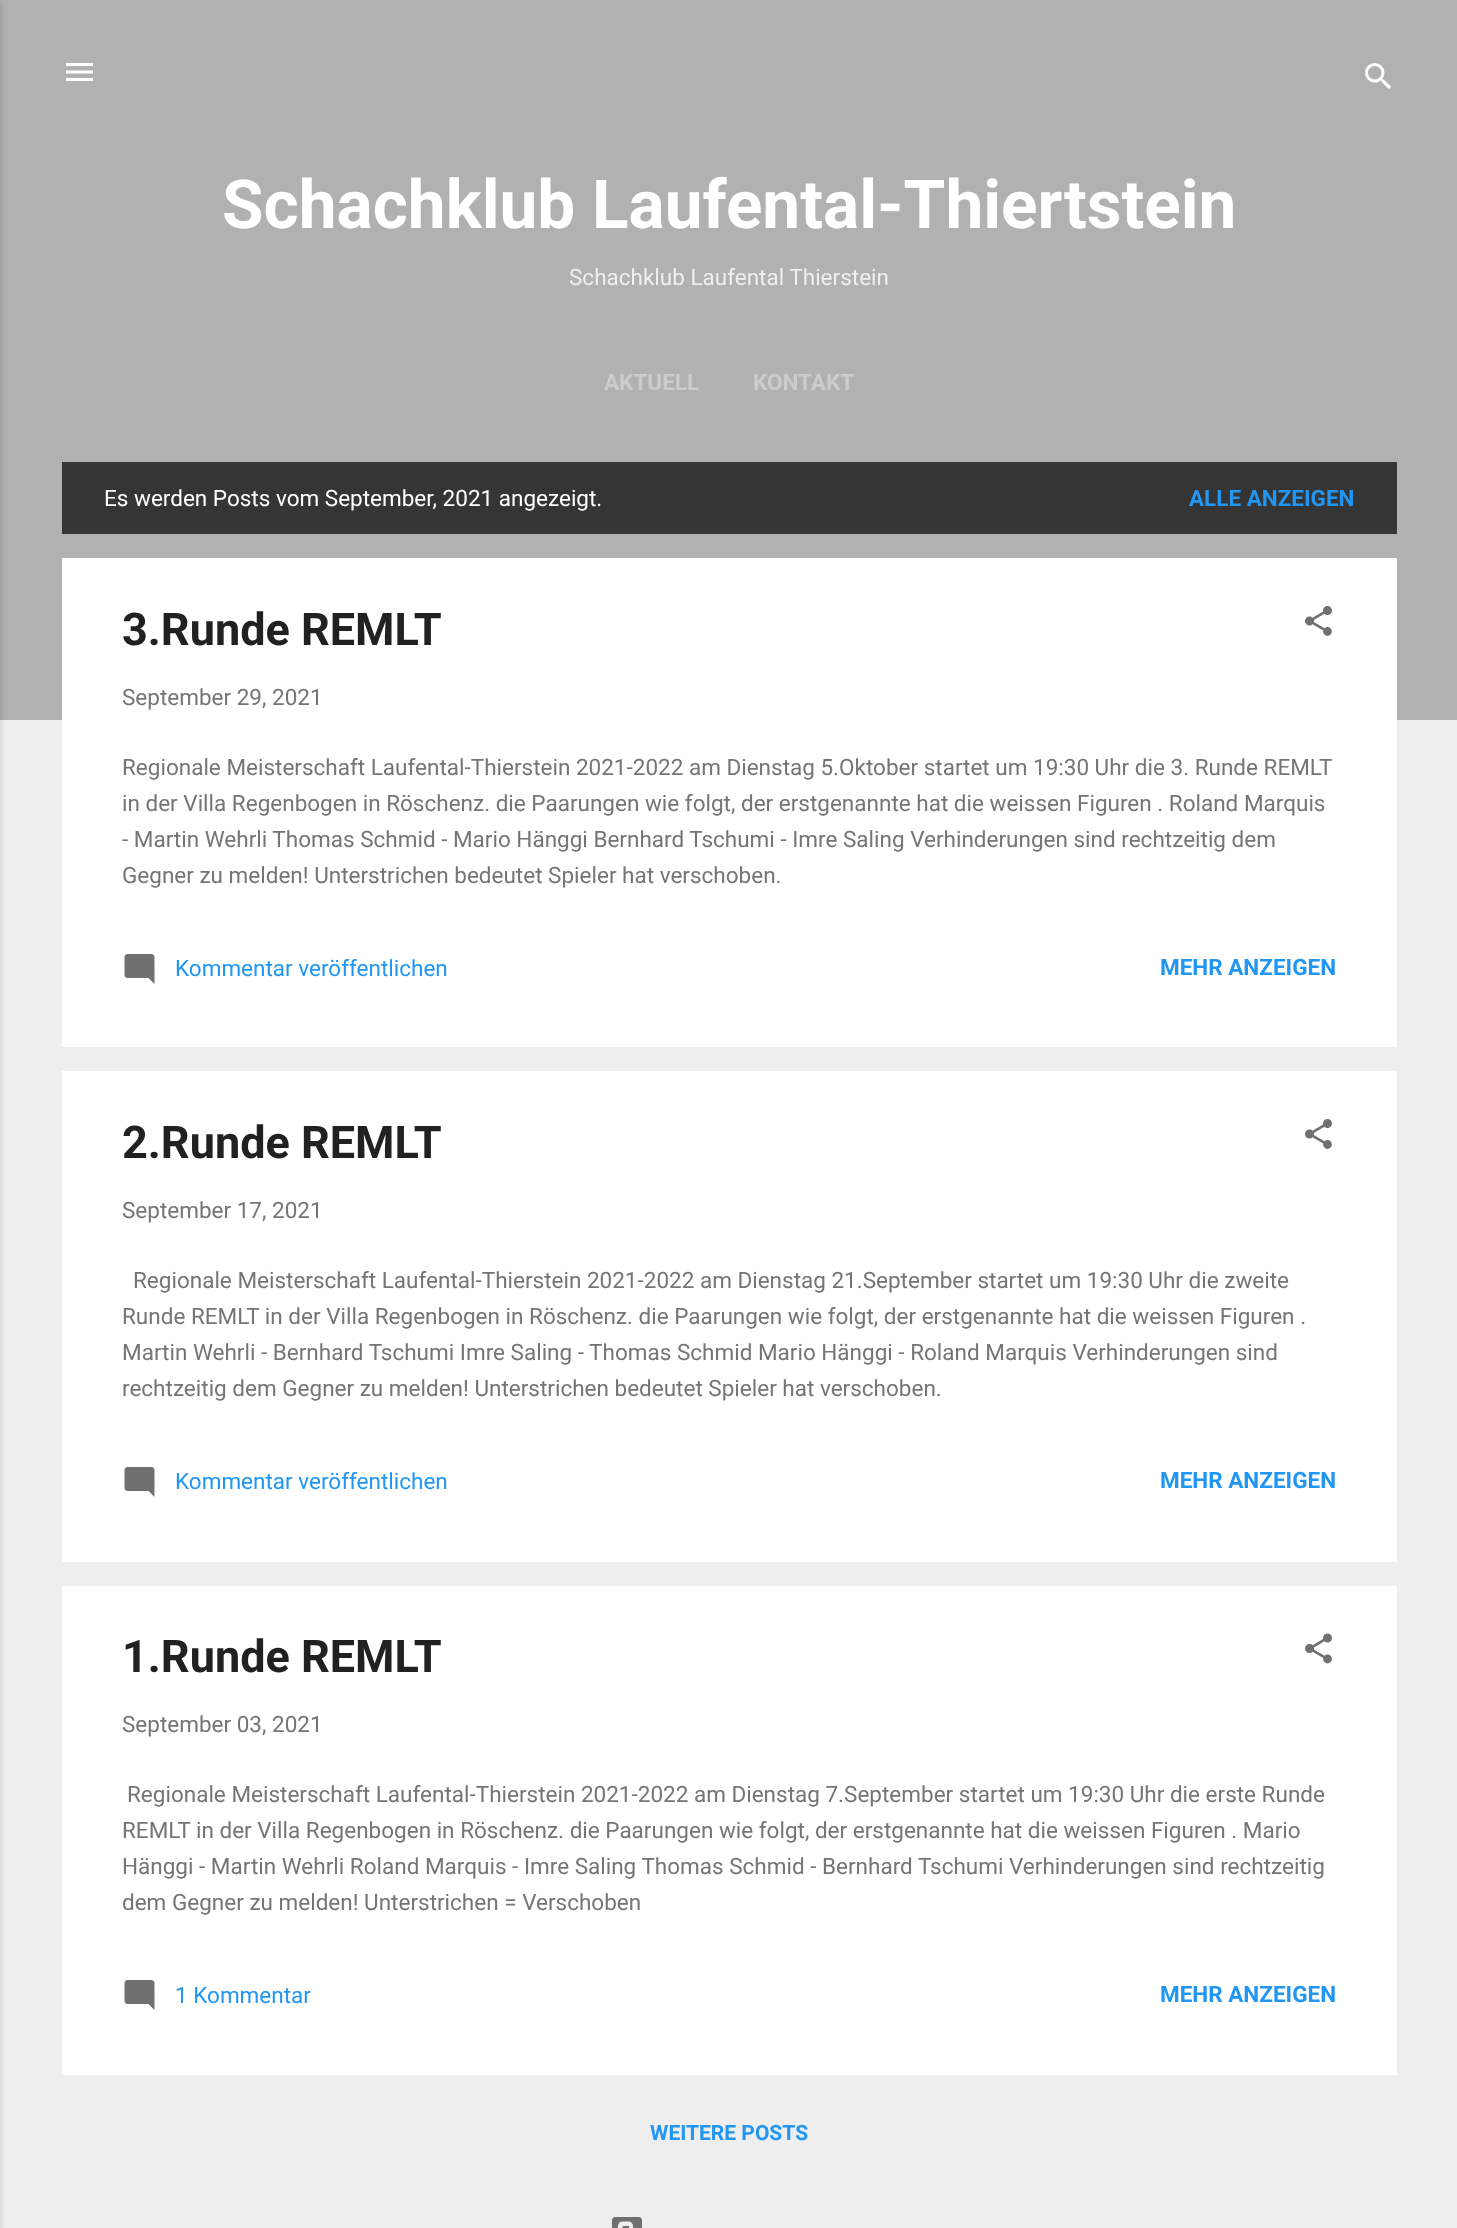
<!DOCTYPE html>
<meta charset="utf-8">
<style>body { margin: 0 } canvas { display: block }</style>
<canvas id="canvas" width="1457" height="2228"></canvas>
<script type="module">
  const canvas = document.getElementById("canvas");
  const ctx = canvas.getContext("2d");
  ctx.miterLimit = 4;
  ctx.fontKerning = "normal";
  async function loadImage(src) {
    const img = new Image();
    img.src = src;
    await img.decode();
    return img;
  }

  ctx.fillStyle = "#eeeeee";
  ctx.fillRect(0, 0, 1457, 2228);
  ctx.fillStyle = "#b1b1b1";
  ctx.fillRect(0, 0, 1457, 720);
  ctx.fillStyle = "rgba(0, 0, 0, 0.1)";
  ctx.filter = "blur(2px)";
  ctx.beginPath();
  ctx.rect(-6, 2, 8, 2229);
  ctx.fill();
  ctx.filter = "none";
  ctx.drawImage(await loadImage("img1.png"), 66, 63, 27, 18);
  ctx.drawImage(await loadImage("img2.png"), 1365, 63, 26, 26);
  ctx.font = "bold 67.5px Roboto";
  ctx.fillStyle = "#ffffff";
  ctx.fillText("Schachklub Laufental-Thiertstein", 222, 228);
  ctx.font = "22.5px Roboto";
  ctx.fillStyle = "#efefef";
  ctx.fillText("Schachklub Laufental Thierstein", 569, 285);
  ctx.font = "bold 22.5px Roboto";
  ctx.fillStyle = "#cccccc";
  ctx.fillText("AKTUELL", 604, 390);
  ctx.fillText("KONTAKT", 753, 390);
  ctx.fillStyle = "#353535";
  ctx.fillRect(62, 462, 1335, 72);
  ctx.font = "22.5px Roboto";
  ctx.fillStyle = "#ffffff";
  ctx.fillText("Es werden Posts vom September, 2021 angezeigt.", 104, 506);
  ctx.font = "bold 22.5px Roboto";
  ctx.fillStyle = "#2196f3";
  ctx.fillText("ALLE ANZEIGEN", 1189, 506);
  ctx.fillStyle = "#ffffff";
  ctx.fillRect(62, 558, 1335, 489);
  ctx.font = "bold 45px Roboto";
  ctx.fillStyle = "#212121";
  ctx.fillText("3.Runde REMLT", 122, 645);
  ctx.drawImage(await loadImage("img3.png"), 1305, 606, 27, 30);
  ctx.font = "22.5px Roboto";
  ctx.fillStyle = "#757575";
  ctx.fillText("September 29, 2021", 122, 705);
  ctx.fillText("Regionale Meisterschaft Laufental-Thierstein 2021-2022 am Dienstag 5.Oktober startet um 19:30 Uhr die 3. Runde REMLT", 122, 775);
  ctx.fillText("in der Villa Regenbogen in Röschenz. die Paarungen wie folgt, der erstgenannte hat die weissen Figuren . Roland Marquis", 122, 811);
  ctx.fillText("- Martin Wehrli Thomas Schmid - Mario Hänggi Bernhard Tschumi - Imre Saling Verhinderungen sind rechtzeitig dem", 122, 847);
  ctx.fillText("Gegner zu melden! Unterstrichen bedeutet Spieler hat verschoben.", 122, 883);
  ctx.drawImage(await loadImage("img4.png"), 124, 954, 31, 30);
  ctx.fillStyle = "#2196f3";
  ctx.fillText("Kommentar veröffentlichen", 175, 976);
  ctx.font = "bold 22.5px Roboto";
  ctx.fillText("MEHR ANZEIGEN", 1160, 975);
  ctx.fillStyle = "#ffffff";
  ctx.fillRect(62, 1071, 1335, 491);
  ctx.font = "bold 45px Roboto";
  ctx.fillStyle = "#212121";
  ctx.fillText("2.Runde REMLT", 122, 1158);
  ctx.drawImage(await loadImage("img3.png"), 1305, 1119, 27, 30);
  ctx.font = "22.5px Roboto";
  ctx.fillStyle = "#757575";
  ctx.fillText("September 17, 2021", 122, 1218);
  ctx.fillText("Regionale Meisterschaft Laufental-Thierstein 2021-2022 am Dienstag 21.September startet um 19:30 Uhr die zweite", 133, 1288);
  ctx.fillText("Runde REMLT in der Villa Regenbogen in Röschenz. die Paarungen wie folgt, der erstgenannte hat die weissen Figuren .", 122, 1324);
  ctx.fillText("Martin Wehrli - Bernhard Tschumi Imre Saling - Thomas Schmid Mario Hänggi - Roland Marquis Verhinderungen sind", 122, 1360);
  ctx.fillText("rechtzeitig dem Gegner zu melden! Unterstrichen bedeutet Spieler hat verschoben.", 122, 1396);
  ctx.drawImage(await loadImage("img4.png"), 124, 1467, 31, 30);
  ctx.fillStyle = "#2196f3";
  ctx.fillText("Kommentar veröffentlichen", 175, 1489);
  ctx.font = "bold 22.5px Roboto";
  ctx.fillText("MEHR ANZEIGEN", 1160, 1488);
  ctx.fillStyle = "#ffffff";
  ctx.fillRect(62, 1586, 1335, 489);
  ctx.font = "bold 45px Roboto";
  ctx.fillStyle = "#212121";
  ctx.fillText("1.Runde REMLT", 122, 1672);
  ctx.drawImage(await loadImage("img5.png"), 1305, 1633, 27, 31);
  ctx.font = "22.5px Roboto";
  ctx.fillStyle = "#757575";
  ctx.fillText("September 03, 2021", 122, 1732);
  ctx.fillText("Regionale Meisterschaft Laufental-Thierstein 2021-2022 am Dienstag 7.September startet um 19:30 Uhr die erste Runde", 127, 1802);
  ctx.fillText("REMLT in der Villa Regenbogen in Röschenz. die Paarungen wie folgt, der erstgenannte hat die weissen Figuren . Mario", 122, 1838);
  ctx.fillText("Hänggi - Martin Wehrli Roland Marquis - Imre Saling Thomas Schmid - Bernhard Tschumi Verhinderungen sind rechtzeitig", 122, 1874);
  ctx.fillText("dem Gegner zu melden! Unterstrichen = Verschoben", 122, 1910);
  ctx.drawImage(await loadImage("img4.png"), 124, 1980, 31, 30);
  ctx.fillStyle = "#2196f3";
  ctx.fillText("1 Kommentar", 175, 2003);
  ctx.font = "bold 22.5px Roboto";
  ctx.fillText("MEHR ANZEIGEN", 1160, 2002);
  ctx.font = "bold 21px Roboto";
  ctx.fillText("WEITERE POSTS", 650, 2140);
  ctx.drawImage(await loadImage("img6.png"), 612, 2217, 30, 11);
</script>
